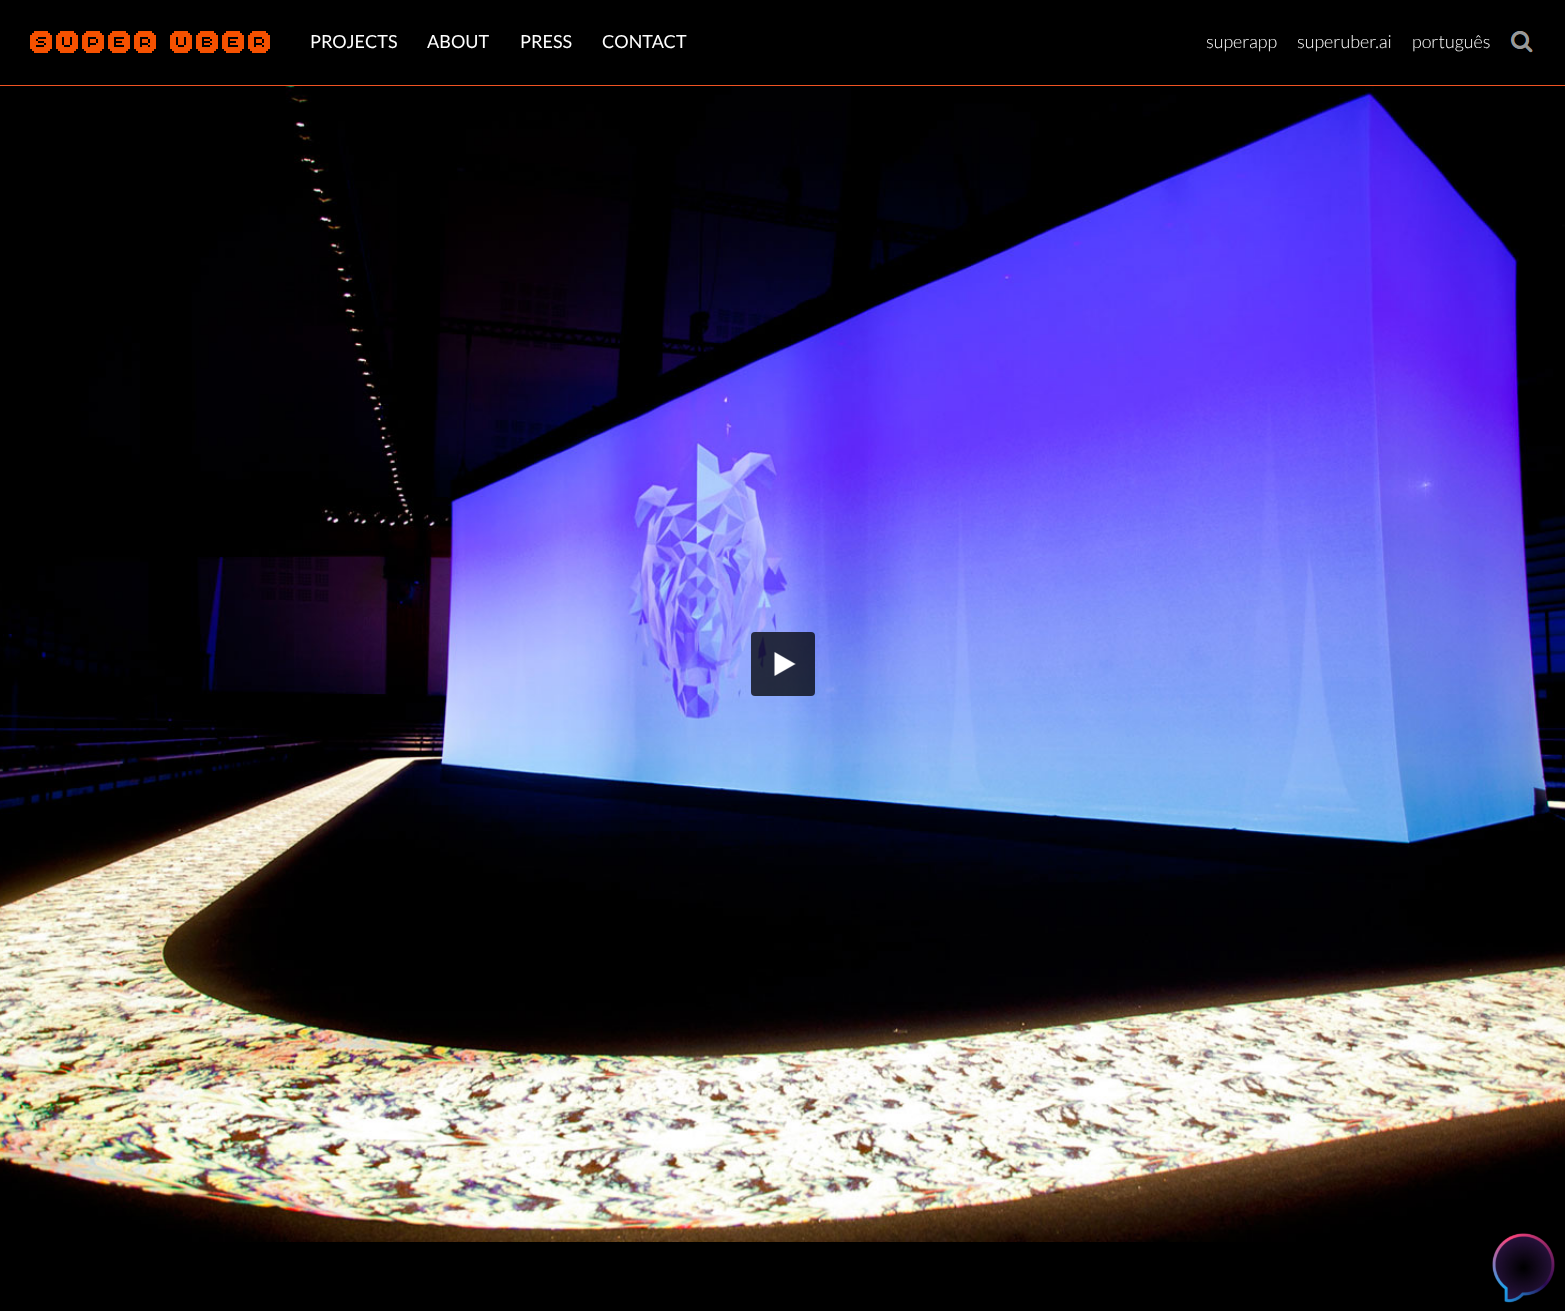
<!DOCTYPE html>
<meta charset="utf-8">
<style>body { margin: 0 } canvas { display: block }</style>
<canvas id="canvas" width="1565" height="1311"></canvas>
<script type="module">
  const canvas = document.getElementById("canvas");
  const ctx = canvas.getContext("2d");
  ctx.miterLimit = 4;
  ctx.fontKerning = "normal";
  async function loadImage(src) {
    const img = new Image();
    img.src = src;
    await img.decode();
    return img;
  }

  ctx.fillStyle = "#000000";
  ctx.fillRect(0, 0, 1565, 1311);
  ctx.fillStyle = "#f05323";
  ctx.fillRect(0, 85, 1565, 1);
  ctx.drawImage(await loadImage("img1.png"), 30, 31, 240, 22);
  ctx.font = "18px Lato";
  ctx.fillStyle = "#ffffff";
  ctx.fillText("PROJECTS", 310, 48);
  ctx.fillText("ABOUT", 427, 48);
  ctx.fillText("PRESS", 520, 48);
  ctx.fillText("CONTACT", 602, 48);
  ctx.font = "300 18px Lato";
  ctx.fillText("superapp", 1206, 48);
  ctx.fillText("superuber.ai", 1297, 48);
  ctx.fillText("português", 1412, 48);
  ctx.drawImage(await loadImage("img2.png"), 1510, 31, 23, 22);
  ctx.drawImage(await loadImage("img3.png"), 0, 86, 1565, 1156);
  ctx.fillStyle = "rgba(0, 0, 0, 0.75)";
  ctx.beginPath();
  ctx.roundRect(751, 632, 64, 64, 4);
  ctx.fill();
  ctx.drawImage(await loadImage("img4.png"), 774, 652, 22, 24);
  ctx.drawImage(await loadImage("img5.png"), 1492, 1233, 63, 70);
</script>
